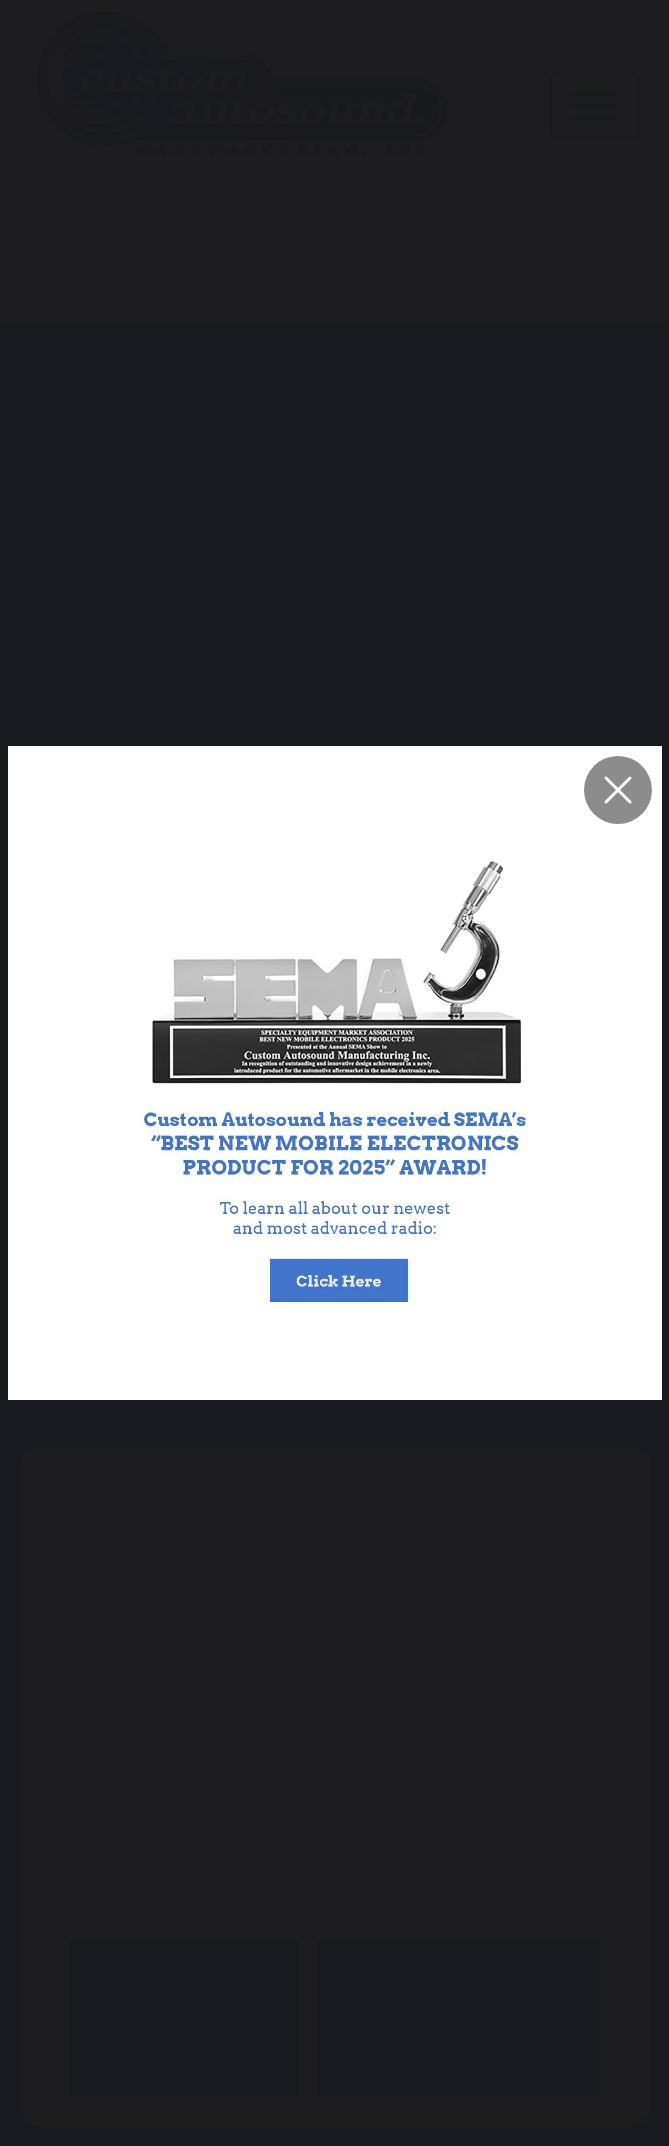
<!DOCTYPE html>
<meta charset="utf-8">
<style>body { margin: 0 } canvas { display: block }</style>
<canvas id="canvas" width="669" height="2146"></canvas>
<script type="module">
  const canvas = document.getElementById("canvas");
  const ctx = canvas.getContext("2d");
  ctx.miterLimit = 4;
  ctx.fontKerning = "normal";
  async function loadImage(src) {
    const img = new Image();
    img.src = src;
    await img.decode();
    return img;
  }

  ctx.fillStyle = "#191a1f";
  ctx.fillRect(0, 0, 669, 2146);
  ctx.fillStyle = "#1d1d20";
  ctx.fillRect(0, 0, 669, 320);
  ctx.drawImage(await loadImage("img1.png"), 37, 12, 410, 145);
  ctx.beginPath();
  ctx.roundRect(551, 73, 86, 66, 7);
  ctx.strokeStyle = "#191a1f";
  ctx.lineWidth = 2;
  ctx.stroke();
  ctx.fillStyle = "#191a1f";
  ctx.beginPath();
  ctx.roundRect(572, 92, 44, 4, 2);
  ctx.fill();
  ctx.beginPath();
  ctx.roundRect(572, 104, 44, 4, 2);
  ctx.fill();
  ctx.beginPath();
  ctx.roundRect(572, 116, 44, 4, 2);
  ctx.fill();
  ctx.fillStyle = "#1c1c1f";
  ctx.fillRect(0, 320, 669, 4);
  ctx.fillStyle = "#ffffff";
  ctx.fillRect(8, 746, 654, 654);
  ctx.fillStyle = "#8c8c8c";
  ctx.beginPath();
  ctx.arc(618, 790, 34, 0, Math.PI * 2);
  ctx.fill();
  ctx.beginPath();
  ctx.moveTo(630, 802);
  ctx.lineTo(606, 778);
  ctx.moveTo(630, 778);
  ctx.lineTo(606, 802);
  ctx.strokeStyle = "#ffffff";
  ctx.lineWidth = 3;
  ctx.lineCap = "round";
  ctx.lineJoin = "round";
  ctx.stroke();
  ctx.drawImage(await loadImage("img2.png"), 139, 861, 388, 445);
  ctx.fillStyle = "rgba(29, 29, 32, 0.95)";
  ctx.beginPath();
  ctx.roundRect(20, 1446, 630, 680, 20);
  ctx.fill();
  ctx.fillStyle = "#191a1f";
  ctx.fillRect(70, 1940, 228, 156);
  ctx.fillRect(318, 1940, 282, 156);
</script>
